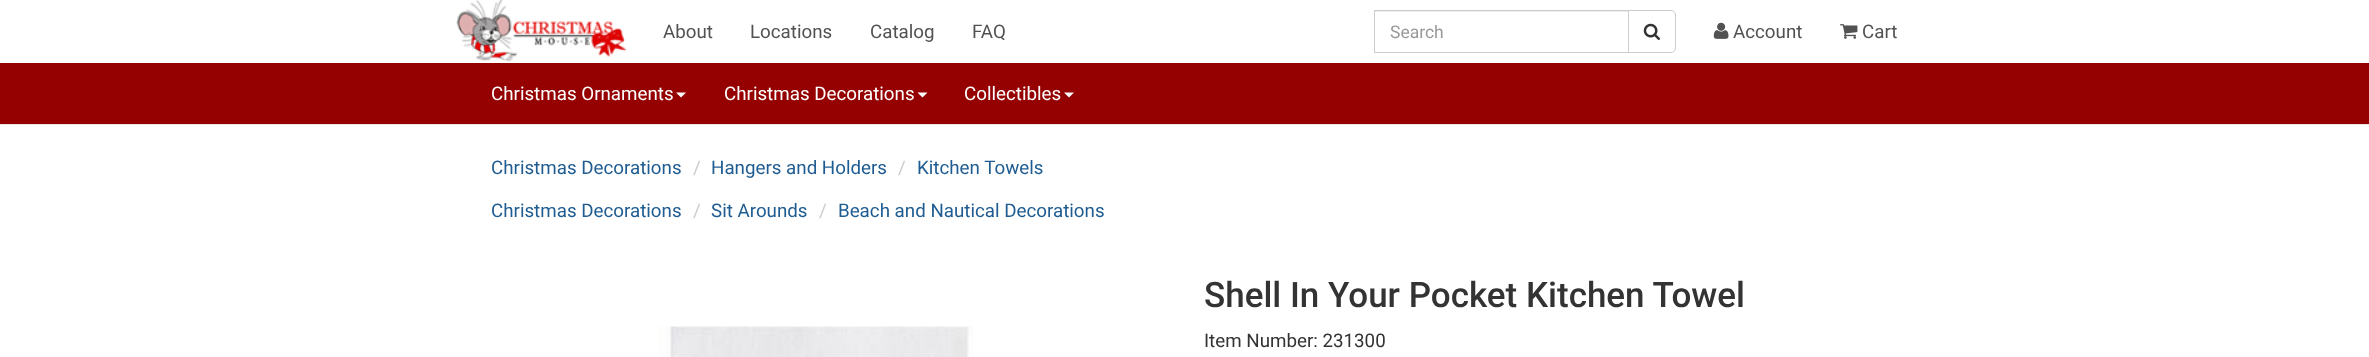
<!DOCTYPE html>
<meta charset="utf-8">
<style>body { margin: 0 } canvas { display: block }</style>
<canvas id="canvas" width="2369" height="357"></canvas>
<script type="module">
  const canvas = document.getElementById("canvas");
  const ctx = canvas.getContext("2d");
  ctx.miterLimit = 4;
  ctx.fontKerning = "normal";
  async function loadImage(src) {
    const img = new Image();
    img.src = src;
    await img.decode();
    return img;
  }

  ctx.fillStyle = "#ffffff";
  ctx.fillRect(0, 0, 2369, 357);
  ctx.drawImage(await loadImage("img1.png"), 456, 0, 171, 62);
  ctx.font = "18.75px Roboto";
  ctx.fillStyle = "#525252";
  ctx.fillText("About", 663, 38);
  ctx.fillText("Locations", 750, 38);
  ctx.fillText("Catalog", 870, 38);
  ctx.fillText("FAQ", 972, 38);
  ctx.fillStyle = "#ececec";
  ctx.fillRect(1375, 11, 253, 1);
  ctx.strokeStyle = "#cccccc";
  ctx.strokeRect(1374.5, 10.5, 254, 42);
  ctx.font = "17.5px Roboto";
  ctx.fillStyle = "#999999";
  ctx.fillText("Search", 1390, 38);
  ctx.fillStyle = "#ffffff";
  ctx.beginPath();
  ctx.roundRect(1628.5, 10.5, 47, 42, [0, 4.5, 4.5, 0]);
  ctx.fill();
  ctx.stroke();
  ctx.drawImage(await loadImage("img2.png"), 1643, 23, 17, 17);
  ctx.drawImage(await loadImage("img3.png"), 1713, 22, 16, 17);
  ctx.font = "18.75px Roboto";
  ctx.fillStyle = "#525252";
  ctx.fillText("Account", 1733, 38);
  ctx.drawImage(await loadImage("img4.png"), 1840, 24, 18, 15);
  ctx.fillText("Cart", 1862, 38);
  ctx.fillStyle = "#950000";
  ctx.fillRect(0, 63, 2369, 61);
  ctx.fillStyle = "#e7e7e7";
  ctx.fillRect(0, 124, 2369, 1);
  ctx.fillStyle = "#ffffff";
  ctx.fillText("Christmas Ornaments", 491, 100);
  ctx.beginPath();
  ctx.moveTo(676, 92.5);
  ctx.lineTo(686, 92.5);
  ctx.lineTo(681, 97.5);
  ctx.closePath();
  ctx.fill();
  ctx.fillText("Christmas Decorations", 724, 100);
  ctx.beginPath();
  ctx.moveTo(917.5, 92.5);
  ctx.lineTo(927.5, 92.5);
  ctx.lineTo(922.5, 97.5);
  ctx.closePath();
  ctx.fill();
  ctx.fillText("Collectibles", 964, 100);
  ctx.beginPath();
  ctx.moveTo(1064, 92.5);
  ctx.lineTo(1074, 92.5);
  ctx.lineTo(1069, 97.5);
  ctx.closePath();
  ctx.fill();
  ctx.fillStyle = "#1f5c91";
  ctx.fillText("Christmas Decorations", 491, 174);
  ctx.fillStyle = "#cccccc";
  ctx.fillText("/", 693, 174);
  ctx.fillStyle = "#1f5c91";
  ctx.fillText("Hangers and Holders", 711, 174);
  ctx.fillStyle = "#cccccc";
  ctx.fillText("/", 898, 174);
  ctx.fillStyle = "#1f5c91";
  ctx.fillText("Kitchen Towels", 917, 174);
  ctx.fillText("Christmas Decorations", 491, 217);
  ctx.fillStyle = "#cccccc";
  ctx.fillText("/", 693, 217);
  ctx.fillStyle = "#1f5c91";
  ctx.fillText("Sit Arounds", 711, 217);
  ctx.fillStyle = "#cccccc";
  ctx.fillText("/", 819, 217);
  ctx.fillStyle = "#1f5c91";
  ctx.fillText("Beach and Nautical Decorations", 838, 217);
  ctx.drawImage(await loadImage("img5.png"), 658, 326, 315, 31);
  ctx.font = "500 35px Roboto";
  ctx.fillStyle = "#333333";
  ctx.fillText("Shell In Your Pocket Kitchen Towel", 1204, 307);
  ctx.font = "18.75px Roboto";
  ctx.fillText("Item Number: 231300", 1204, 347);
</script>
